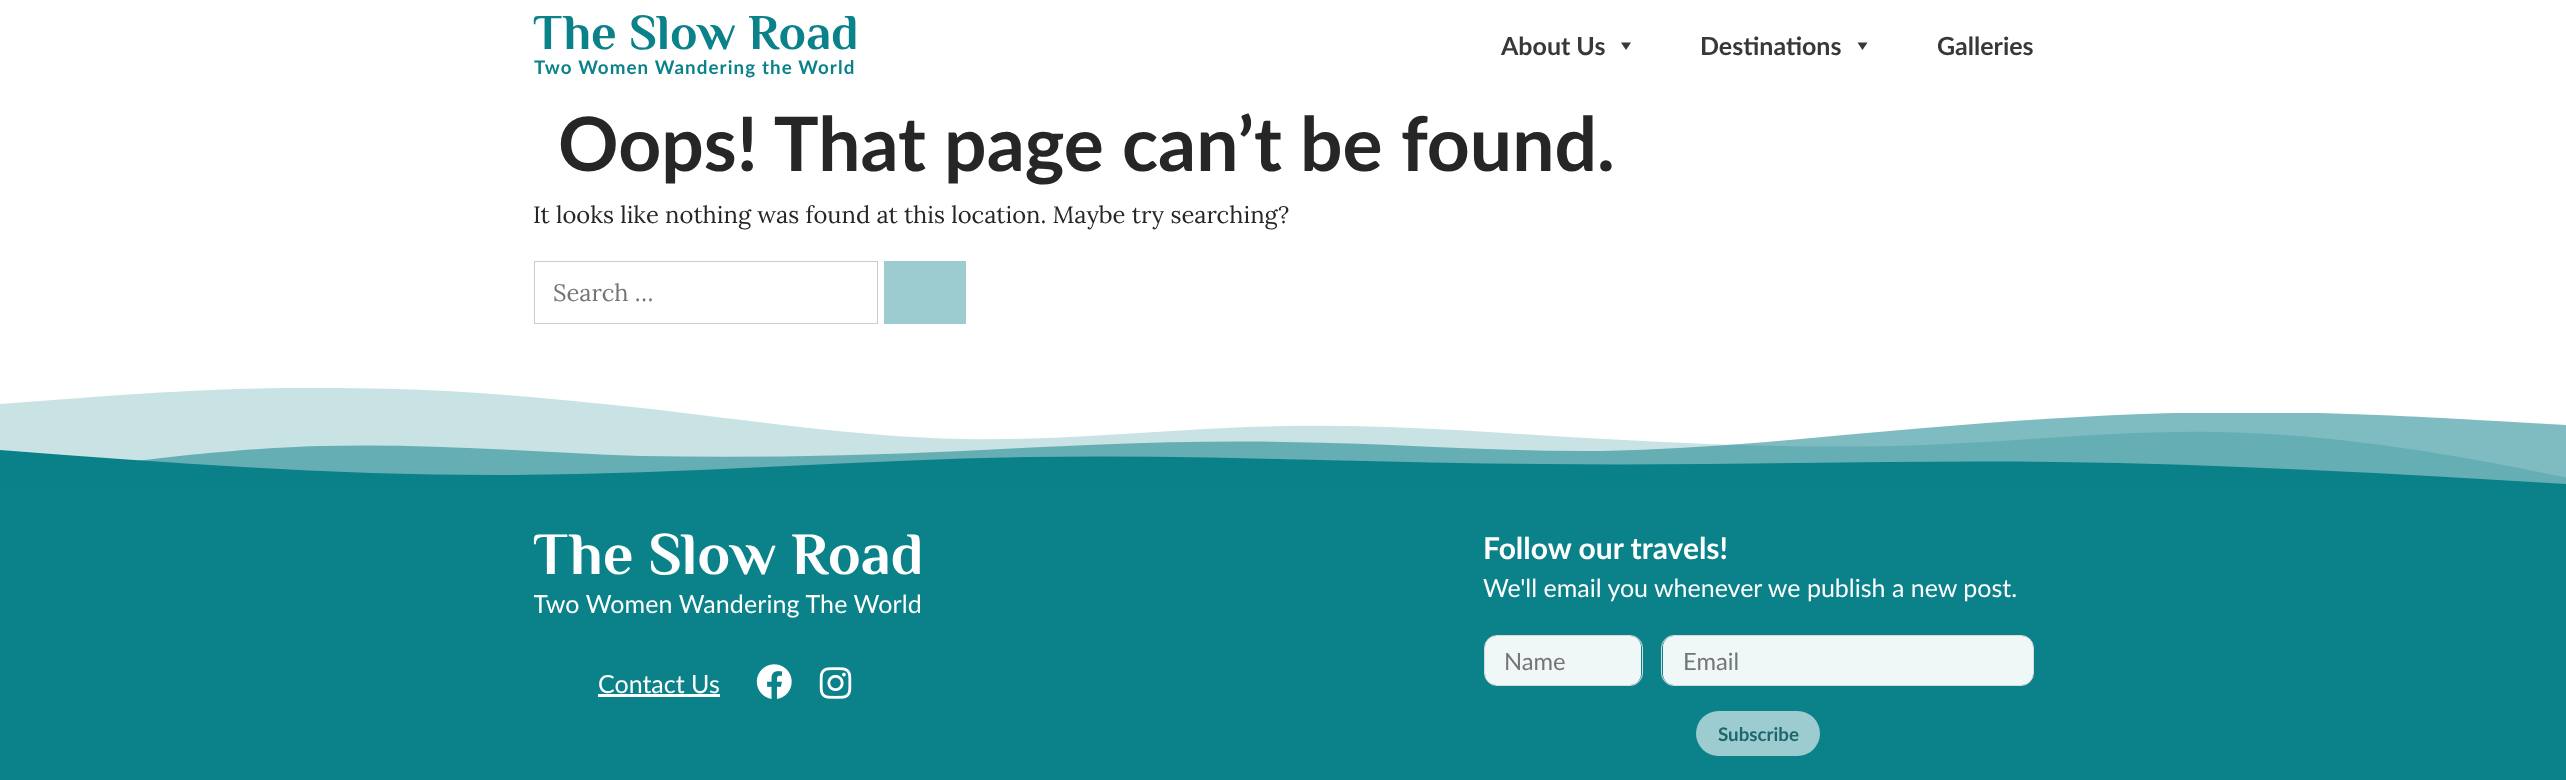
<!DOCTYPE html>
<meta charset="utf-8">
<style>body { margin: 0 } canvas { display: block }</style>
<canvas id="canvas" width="2566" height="780"></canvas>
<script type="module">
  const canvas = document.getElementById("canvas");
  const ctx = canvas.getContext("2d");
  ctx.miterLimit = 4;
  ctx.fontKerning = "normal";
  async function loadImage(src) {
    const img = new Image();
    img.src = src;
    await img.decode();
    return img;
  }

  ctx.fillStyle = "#ffffff";
  ctx.fillRect(0, 0, 2566, 780);
  ctx.font = "bold 50px Philosopher";
  ctx.fillStyle = "#0b818a";
  ctx.fillText("The Slow Road", 533, 49);
  ctx.letterSpacing = "1.1px";
  ctx.font = "bold 18.75px Lato";
  ctx.fillText("Two Women Wandering the World", 534, 74);
  ctx.letterSpacing = "0px";
  ctx.font = "bold 25px Lato";
  ctx.fillStyle = "#383838";
  ctx.fillText("About Us", 1501, 55);
  ctx.beginPath();
  ctx.moveTo(1631, 42.5);
  ctx.lineTo(1626, 50);
  ctx.lineTo(1621, 42.5);
  ctx.closePath();
  ctx.fill();
  ctx.fillText("Destinations", 1700, 55);
  ctx.beginPath();
  ctx.moveTo(1867.5, 42.5);
  ctx.lineTo(1862.5, 50);
  ctx.lineTo(1857.5, 42.5);
  ctx.closePath();
  ctx.fill();
  ctx.fillText("Galleries", 1937, 55);
  ctx.font = "bold 75px Lato";
  ctx.fillStyle = "#262626";
  ctx.fillText("Oops! That page can’t be found.", 558, 171);
  ctx.font = "23.75px Lora";
  ctx.fillText("It looks like nothing was found at this location. Maybe try searching?", 533, 223);
  ctx.strokeStyle = "#cccccc";
  ctx.strokeRect(534.5, 261.5, 343, 62);
  ctx.fillStyle = "#757575";
  ctx.fillText("Search …", 553, 301);
  ctx.fillStyle = "#9dccd0";
  ctx.fillRect(884, 261, 82, 63);
  ctx.fillStyle = "#0b818a";
  ctx.beginPath();
  ctx.moveTo(0, 450);
  ctx.bezierCurveTo(171, 463, 342, 476, 513, 475);
  ctx.bezierCurveTo(685, 474, 856, 460, 1027, 457);
  ctx.bezierCurveTo(1198, 454, 1369, 463, 1541, 464);
  ctx.bezierCurveTo(1712, 466, 1883, 460, 2054, 462);
  ctx.bezierCurveTo(2226, 464, 2397, 474, 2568, 484);
  ctx.lineTo(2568, 488);
  ctx.lineTo(0, 488);
  ctx.closePath();
  ctx.fill();
  ctx.save();
  ctx.beginPath();
  ctx.rect(0, 413, 2566, 73);
  ctx.clip();
  ctx.fillStyle = "rgba(11, 129, 138, 0.53)";
  ctx.beginPath();
  ctx.moveTo(-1, 480);
  ctx.lineTo(52, 472);
  ctx.bezierCurveTo(106, 465, 213, 449, 320, 446);
  ctx.bezierCurveTo(427, 443, 534, 452, 641, 456);
  ctx.bezierCurveTo(748, 458, 855, 456, 962, 451);
  ctx.bezierCurveTo(1069, 446, 1176, 440, 1283, 442);
  ctx.bezierCurveTo(1389, 443, 1496, 452, 1603, 451);
  ctx.bezierCurveTo(1710, 449, 1817, 437, 1924, 428);
  ctx.bezierCurveTo(2031, 419, 2138, 412, 2245, 412);
  ctx.bezierCurveTo(2352, 412, 2459, 419, 2513, 422);
  ctx.lineTo(2566, 425);
  ctx.lineTo(2566, 487);
  ctx.lineTo(-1, 487);
  ctx.closePath();
  ctx.fill();
  ctx.restore();
  ctx.fillStyle = "rgba(11, 129, 138, 0.22)";
  ctx.beginPath();
  ctx.moveTo(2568, 478);
  ctx.lineTo(2514, 467);
  ctx.bezierCurveTo(2461, 457, 2354, 437, 2247, 433);
  ctx.bezierCurveTo(2140, 428, 2033, 441, 1926, 445);
  ctx.bezierCurveTo(1819, 449, 1712, 445, 1605, 439);
  ctx.bezierCurveTo(1498, 433, 1391, 424, 1284, 426);
  ctx.bezierCurveTo(1177, 428, 1070, 441, 963, 439);
  ctx.bezierCurveTo(856, 437, 749, 420, 642, 408);
  ctx.bezierCurveTo(535, 396, 428, 387, 321, 388);
  ctx.bezierCurveTo(214, 387, 107, 396, 53, 400);
  ctx.lineTo(0, 404);
  ctx.lineTo(0, 487);
  ctx.lineTo(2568, 487);
  ctx.closePath();
  ctx.fill();
  ctx.fillStyle = "#0b818a";
  ctx.fillRect(0, 488, 2566, 292);
  ctx.font = "bold 60px Philosopher";
  ctx.fillStyle = "#ffffff";
  ctx.fillText("The Slow Road", 533, 574);
  ctx.save();
  ctx.beginPath();
  ctx.rect(534, 524, 1500, 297);
  ctx.clip();
  ctx.letterSpacing = "0.1px";
  ctx.font = "25px Lato";
  ctx.fillText("Two Women Wandering The World", 533, 613);
  ctx.restore();
  ctx.font = "25px Lato";
  ctx.fillText("Contact Us", 598, 693);
  ctx.fillRect(598, 694, 122, 3);
  ctx.drawImage(await loadImage("img1.png"), 756, 664, 36, 35);
  ctx.drawImage(await loadImage("img2.png"), 819, 667, 33, 32);
  ctx.font = "bold 30px Lato";
  ctx.fillText("Follow our travels!", 1483, 559);
  ctx.font = "25px Lato";
  ctx.fillText("We'll email you whenever we publish a new post.", 1483, 597);
  ctx.fillStyle = "#f0f7f7";
  ctx.beginPath();
  ctx.roundRect(1485, 636, 156, 49, 11);
  ctx.fill();
  ctx.beginPath();
  ctx.roundRect(1484.5, 635.5, 158, 50, 12.5);
  ctx.strokeStyle = "#dadbdd";
  ctx.stroke();
  ctx.font = "23.75px Lato";
  ctx.fillStyle = "#757575";
  ctx.fillText("Name", 1504, 670);
  ctx.fillStyle = "#f0f7f7";
  ctx.beginPath();
  ctx.roundRect(1663, 636, 370, 49, 11);
  ctx.fill();
  ctx.beginPath();
  ctx.roundRect(1661.5, 635.5, 372, 50, 12.5);
  ctx.stroke();
  ctx.fillStyle = "#757575";
  ctx.fillText("Email", 1683, 670);
  ctx.fillStyle = "#9dccd0";
  ctx.beginPath();
  ctx.roundRect(1696, 711, 124, 45, 22.5);
  ctx.fill();
  ctx.font = "bold 18.75px Lato";
  ctx.fillStyle = "#1f656b";
  ctx.fillText("Subscribe", 1718, 741);
</script>
